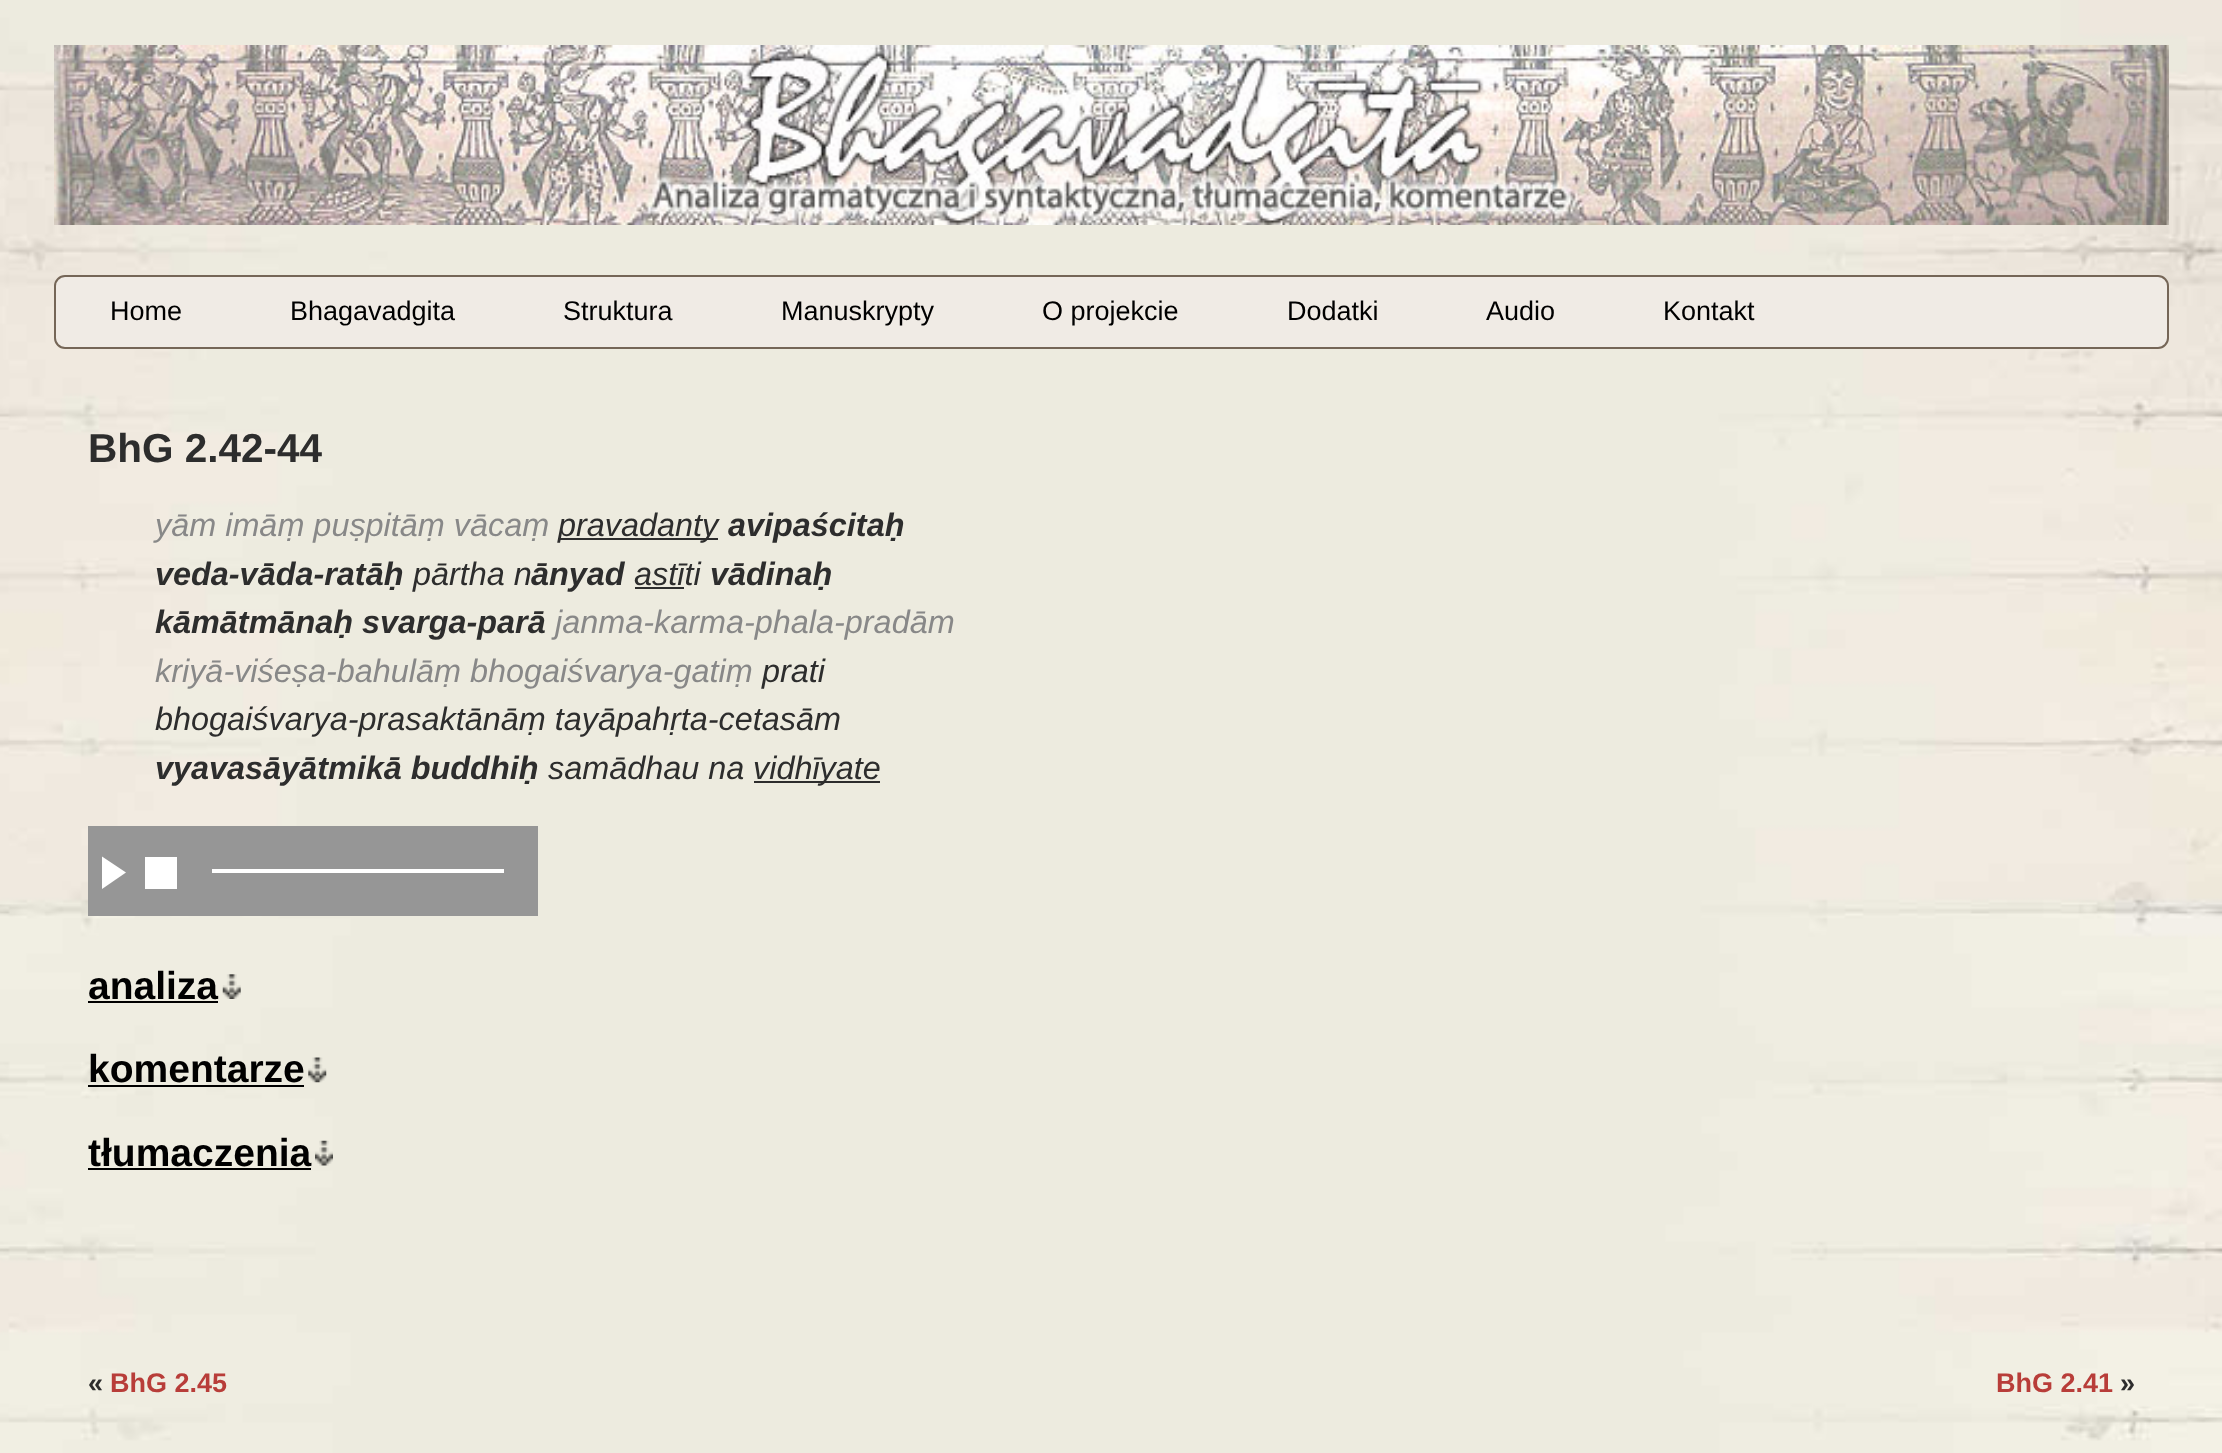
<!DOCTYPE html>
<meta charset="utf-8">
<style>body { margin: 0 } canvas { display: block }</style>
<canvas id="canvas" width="2222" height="1453"></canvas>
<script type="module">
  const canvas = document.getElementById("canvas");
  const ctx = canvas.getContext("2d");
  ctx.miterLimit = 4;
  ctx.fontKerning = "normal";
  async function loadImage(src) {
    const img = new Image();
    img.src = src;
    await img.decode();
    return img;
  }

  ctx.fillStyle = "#ffffff";
  ctx.fillRect(0, 0, 2222, 1453);
  ctx.drawImage(await loadImage("img1.png"), 0, 0, 2222, 1453);
  ctx.drawImage(await loadImage("img2.png"), 54, 45, 2115, 180);
  ctx.fillStyle = "#f0ebe5";
  ctx.beginPath();
  ctx.roundRect(55, 276, 2113, 72, 10);
  ctx.fill();
  ctx.strokeStyle = "#756657";
  ctx.lineWidth = 2;
  ctx.stroke();
  ctx.font = "27px Liberation Sans";
  ctx.fillStyle = "#000000";
  ctx.fillText("Home", 110, 320);
  ctx.fillText("Bhagavadgita", 290, 320);
  ctx.fillText("Struktura", 563, 320);
  ctx.fillText("Manuskrypty", 781, 320);
  ctx.fillText("O projekcie", 1042, 320);
  ctx.fillText("Dodatki", 1287, 320);
  ctx.fillText("Audio", 1486, 320);
  ctx.fillText("Kontakt", 1663, 320);
  ctx.font = "bold 40.5px Liberation Sans";
  ctx.fillStyle = "#2d2d2d";
  ctx.fillText("BhG 2.42-44", 88, 462);
  ctx.font = "italic 32.4px Liberation Sans";
  ctx.fillStyle = "#888888";
  ctx.fillText("yām imāṃ puṣpitāṃ vācaṃ", 155, 536);
  ctx.fillStyle = "#2d2d2d";
  ctx.fillRect(558, 538, 160, 2);
  ctx.fillText("pravadanty", 558, 536);
  ctx.font = "italic bold 32.4px Liberation Sans";
  ctx.fillText("avipaścitaḥ", 728, 536);
  ctx.fillText("veda-vāda-ratāḥ", 155, 585);
  ctx.font = "italic 32.4px Liberation Sans";
  ctx.fillText("pārtha n", 413, 585);
  ctx.font = "italic bold 32.4px Liberation Sans";
  ctx.fillText("ānyad", 531, 585);
  ctx.font = "italic 32.4px Liberation Sans";
  ctx.fillText("astīti", 634, 585);
  ctx.fillRect(635, 587, 49, 2);
  ctx.font = "italic bold 32.4px Liberation Sans";
  ctx.fillText("vādinaḥ", 710, 585);
  ctx.fillText("kāmātmānaḥ svarga-parā", 155, 633);
  ctx.font = "italic 32.4px Liberation Sans";
  ctx.fillStyle = "#888888";
  ctx.fillText("janma-karma-phala-pradām", 555, 633);
  ctx.fillText("kriyā-viśeṣa-bahulāṃ bhogaiśvarya-gatiṃ", 155, 682);
  ctx.fillStyle = "#2d2d2d";
  ctx.fillText("prati", 762, 682);
  ctx.fillText("bhogaiśvarya-prasaktānāṃ tayāpahṛta-cetasām", 155, 730);
  ctx.font = "italic bold 32.4px Liberation Sans";
  ctx.fillText("vyavasāyātmikā buddhiḥ", 155, 779);
  ctx.font = "italic 32.4px Liberation Sans";
  ctx.fillText("samādhau na", 548, 779);
  ctx.fillRect(754, 781, 126, 2);
  ctx.fillText("vidhīyate", 753, 779);
  ctx.fillStyle = "#969696";
  ctx.fillRect(88, 826, 450, 90);
  ctx.fillStyle = "#ffffff";
  ctx.beginPath();
  ctx.moveTo(102, 856.5);
  ctx.lineTo(126, 872.5);
  ctx.lineTo(102, 889);
  ctx.closePath();
  ctx.fill();
  ctx.fillRect(145, 857, 32, 32);
  ctx.fillRect(212, 869, 292, 4);
  ctx.font = "bold 39px Liberation Sans";
  ctx.fillStyle = "#000000";
  ctx.fillText("analiza", 88, 999);
  ctx.fillRect(88, 1001, 130, 2);
  ctx.drawImage(await loadImage("img3.png"), 222, 974, 19, 25);
  ctx.fillText("komentarze", 88, 1082);
  ctx.fillRect(88, 1085, 216, 2);
  ctx.drawImage(await loadImage("img4.png"), 308, 1057, 19, 26);
  ctx.fillText("tłumaczenia", 88, 1166);
  ctx.fillRect(88, 1168, 223, 2);
  ctx.drawImage(await loadImage("img5.png"), 315, 1140, 18, 26);
  ctx.font = "bold 27px Liberation Sans";
  ctx.fillStyle = "#2d2d2d";
  ctx.fillText("«", 88, 1392);
  ctx.fillStyle = "#b83d39";
  ctx.fillText("BhG 2.45", 110, 1392);
  ctx.fillText("BhG 2.41", 1996, 1392);
  ctx.fillStyle = "#2d2d2d";
  ctx.fillText("»", 2120, 1392);
</script>
